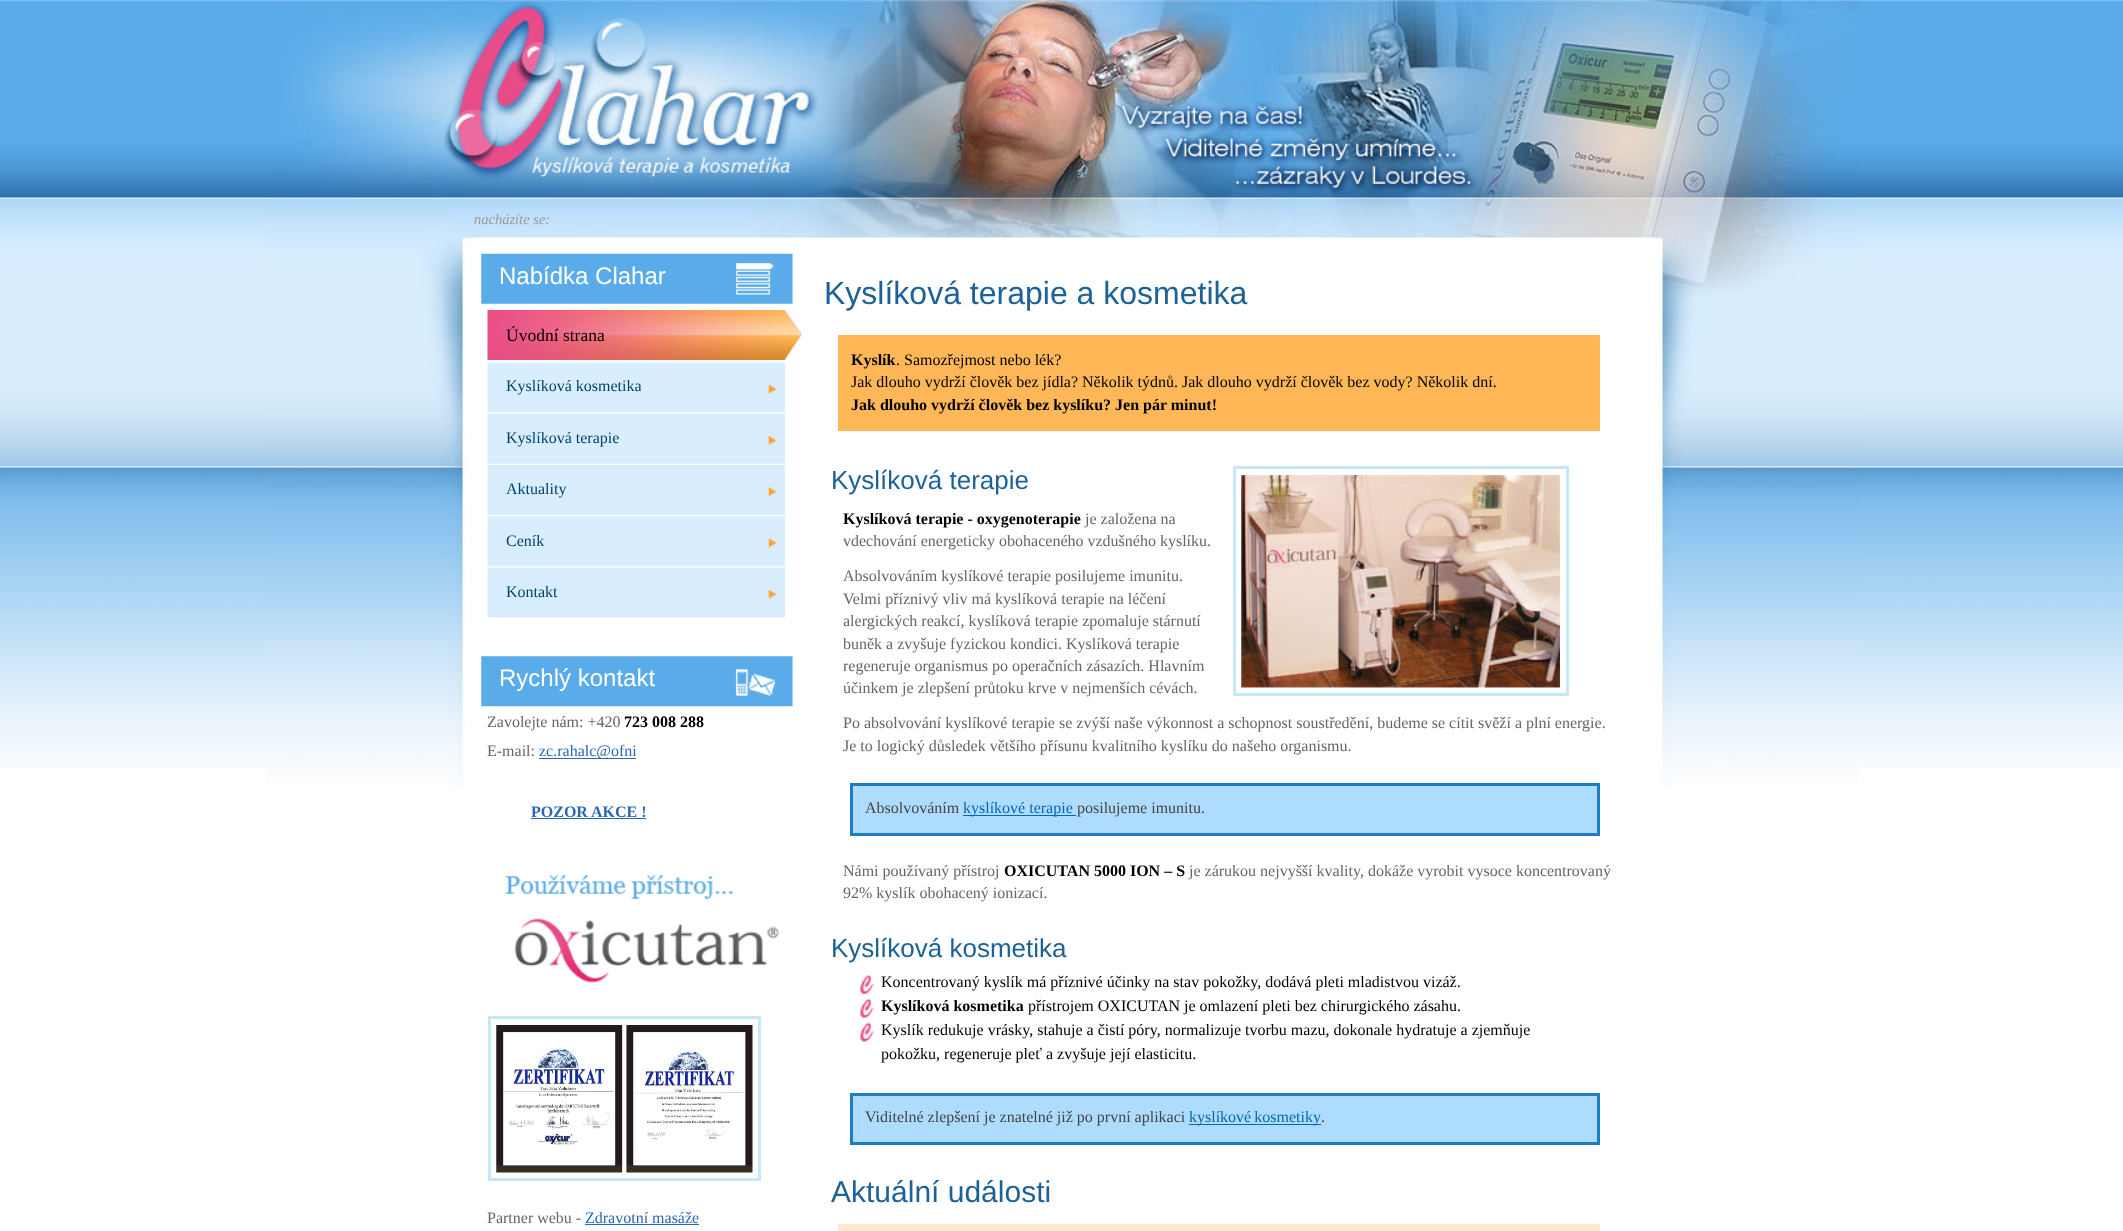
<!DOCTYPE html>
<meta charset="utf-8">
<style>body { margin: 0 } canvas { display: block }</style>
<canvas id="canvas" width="2123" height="1231"></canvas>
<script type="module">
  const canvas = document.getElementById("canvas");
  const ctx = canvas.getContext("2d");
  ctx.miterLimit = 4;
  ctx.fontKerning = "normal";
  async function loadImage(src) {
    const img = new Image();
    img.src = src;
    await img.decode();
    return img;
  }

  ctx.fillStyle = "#ffffff";
  ctx.fillRect(0, 0, 2123, 1231);
  ctx.drawImage(await loadImage("img1.png"), 0, 0, 2123, 769);
  ctx.drawImage(await loadImage("img2.png"), 266, 0, 1593, 786);
  ctx.drawImage(await loadImage("img3.png"), 450, 0, 1225, 199);
  ctx.drawImage(await loadImage("img4.png"), 450, 198, 1225, 40);
  ctx.font = "italic 14.5px Liberation Serif";
  ctx.fillStyle = "#999999";
  ctx.fillText("nacházíte se:", 474, 224);
  ctx.drawImage(await loadImage("img5.png"), 481, 253, 313, 51);
  ctx.font = "24px Liberation Sans";
  ctx.fillStyle = "#ffffff";
  ctx.fillText("Nabídka Clahar", 499, 284);
  ctx.drawImage(await loadImage("img6.png"), 487, 310, 315, 50);
  ctx.font = "17.5px Liberation Serif";
  ctx.fillStyle = "#000000";
  ctx.fillText("Úvodní strana", 506, 341);
  ctx.drawImage(await loadImage("img7.png"), 487, 362, 299, 51);
  ctx.font = "16px Liberation Serif";
  ctx.fillStyle = "#01436a";
  ctx.fillText("Kyslíková kosmetika", 506, 391);
  ctx.drawImage(await loadImage("img8.png"), 487, 413, 299, 51);
  ctx.fillText("Kyslíková terapie", 506, 443);
  ctx.drawImage(await loadImage("img9.png"), 487, 465, 299, 50);
  ctx.fillText("Aktuality", 506, 494);
  ctx.drawImage(await loadImage("img10.png"), 487, 516, 299, 51);
  ctx.fillText("Ceník", 506, 546);
  ctx.drawImage(await loadImage("img11.png"), 487, 567, 299, 51);
  ctx.fillText("Kontakt", 506, 597);
  ctx.drawImage(await loadImage("img12.png"), 481, 656, 313, 51);
  ctx.font = "24px Liberation Sans";
  ctx.fillStyle = "#ffffff";
  ctx.fillText("Rychlý kontakt", 499, 686);
  ctx.font = "16px Liberation Serif";
  ctx.fillStyle = "#666666";
  ctx.fillText("Zavolejte nám: +420", 487, 727);
  ctx.font = "bold 16px Liberation Serif";
  ctx.fillStyle = "#000000";
  ctx.fillText("723 008 288", 624, 727);
  ctx.font = "16px Liberation Serif";
  ctx.fillStyle = "#666666";
  ctx.fillText("E-mail:", 487, 756);
  ctx.fillStyle = "#2a66b8";
  ctx.fillRect(539, 758, 97, 1);
  ctx.fillText("zc.rahalc@ofni", 539, 756);
  ctx.font = "bold 16px Liberation Serif";
  ctx.fillText("POZOR AKCE !", 531, 817);
  ctx.fillRect(531, 818, 115, 1);
  ctx.drawImage(await loadImage("img13.png"), 505, 874, 274, 109);
  ctx.strokeStyle = "#c6e7f7";
  ctx.lineWidth = 3;
  ctx.strokeRect(489.5, 1017.5, 270, 162);
  ctx.drawImage(await loadImage("img14.png"), 496, 1025, 257, 148);
  ctx.font = "16px Liberation Serif";
  ctx.fillStyle = "#666666";
  ctx.fillText("Partner webu -", 487, 1223);
  ctx.fillStyle = "#2a66b8";
  ctx.fillText("Zdravotní masáže", 585, 1223);
  ctx.fillRect(585, 1224, 114, 1);
  ctx.font = "32px Liberation Sans";
  ctx.fillStyle = "#1d6297";
  ctx.fillText("Kyslíková terapie a kosmetika", 824, 304);
  ctx.fillStyle = "#ffb758";
  ctx.fillRect(838, 335, 762, 96);
  ctx.font = "bold 16px Liberation Serif";
  ctx.fillStyle = "#000000";
  ctx.fillText("Kyslík", 851, 365);
  ctx.font = "16px Liberation Serif";
  ctx.fillText(". Samozřejmost nebo lék?", 896, 365);
  ctx.fillText("Jak dlouho vydrží člověk bez jídla? Několik týdnů. Jak dlouho vydrží člověk bez vody? Několik dní.", 851, 387);
  ctx.font = "bold 16px Liberation Serif";
  ctx.fillText("Jak dlouho vydrží člověk bez kyslíku? Jen pár minut!", 851, 410);
  ctx.font = "26px Liberation Sans";
  ctx.fillStyle = "#1d6297";
  ctx.fillText("Kyslíková terapie", 831, 489);
  ctx.strokeRect(1234.5, 467.5, 333, 227);
  ctx.drawImage(await loadImage("img15.png"), 1241, 475, 319, 213);
  ctx.font = "bold 16px Liberation Serif";
  ctx.fillStyle = "#000000";
  ctx.fillText("Kyslíková terapie - oxygenoterapie", 843, 524);
  ctx.font = "16px Liberation Serif";
  ctx.fillStyle = "#666666";
  ctx.fillText("je založena na", 1085, 524);
  ctx.fillText("vdechování energeticky obohaceného vzdušného kyslíku.", 843, 546);
  ctx.fillText("Absolvováním kyslíkové terapie posilujeme imunitu.", 843, 581);
  ctx.fillText("Velmi příznivý vliv má kyslíková terapie na léčení", 843, 604);
  ctx.fillText("alergických reakcí, kyslíková terapie zpomaluje stárnutí", 843, 626);
  ctx.fillText("buněk a zvyšuje fyzickou kondici. Kyslíková terapie", 843, 649);
  ctx.fillText("regeneruje organismus po operačních zásazích. Hlavním", 843, 671);
  ctx.fillText("účinkem je zlepšení průtoku krve v nejmenších cévách.", 843, 693);
  ctx.fillText("Po absolvování kyslíkové terapie se zvýší naše výkonnost a schopnost soustředění, budeme se cítit svěží a plní energie.", 843, 728);
  ctx.fillText("Je to logický důsledek většího přísunu kvalitního kyslíku do našeho organismu.", 843, 751);
  ctx.fillStyle = "#aedcff";
  ctx.beginPath();
  ctx.rect(851.5, 784.5, 747, 50);
  ctx.fill();
  ctx.strokeStyle = "#217dc3";
  ctx.stroke();
  ctx.fillStyle = "#444444";
  ctx.fillText("Absolvováním", 865, 813);
  ctx.fillStyle = "#0467b2";
  ctx.fillRect(963, 815, 113, 1);
  ctx.fillText("kyslíkové terapie", 963, 813);
  ctx.fillStyle = "#444444";
  ctx.fillText("posilujeme imunitu.", 1077, 813);
  ctx.fillStyle = "#666666";
  ctx.fillText("Námi používaný přístroj", 843, 876);
  ctx.font = "bold 16px Liberation Serif";
  ctx.fillStyle = "#000000";
  ctx.fillText("OXICUTAN 5000 ION – S", 1004, 876);
  ctx.font = "16px Liberation Serif";
  ctx.fillStyle = "#666666";
  ctx.fillText("je zárukou nejvyšší kvality, dokáže vyrobit vysoce koncentrovaný", 1189, 876);
  ctx.fillText("92% kyslík obohacený ionizací.", 843, 898);
  ctx.font = "26px Liberation Sans";
  ctx.fillStyle = "#1d6297";
  ctx.fillText("Kyslíková kosmetika", 831, 957);
  ctx.drawImage(await loadImage("img16.png"), 860, 975, 14, 20);
  ctx.font = "16px Liberation Serif";
  ctx.fillStyle = "#000000";
  ctx.fillText("Koncentrovaný kyslík má příznivé účinky na stav pokožky, dodává pleti mladistvou vizáž.", 881, 987);
  ctx.drawImage(await loadImage("img17.png"), 860, 998, 14, 21);
  ctx.font = "bold 16px Liberation Serif";
  ctx.fillText("Kyslíková kosmetika", 881, 1011);
  ctx.font = "16px Liberation Serif";
  ctx.fillText("přístrojem OXICUTAN je omlazení pleti bez chirurgického zásahu.", 1028, 1011);
  ctx.drawImage(await loadImage("img18.png"), 860, 1022, 14, 21);
  ctx.fillText("Kyslík redukuje vrásky, stahuje a čistí póry, normalizuje tvorbu mazu, dokonale hydratuje a zjemňuje", 881, 1035);
  ctx.fillText("pokožku, regeneruje pleť a zvyšuje její elasticitu.", 881, 1059);
  ctx.fillStyle = "#aedcff";
  ctx.beginPath();
  ctx.rect(851.5, 1094.5, 747, 49);
  ctx.fill();
  ctx.stroke();
  ctx.fillStyle = "#444444";
  ctx.fillText("Viditelné zlepšení je znatelné již po první aplikaci", 865, 1122);
  ctx.fillStyle = "#0467b2";
  ctx.fillRect(1189, 1124, 132, 1);
  ctx.wordSpacing = "-1px";
  ctx.fillText("kyslíkové kosmetiky", 1189, 1122);
  ctx.wordSpacing = "0px";
  ctx.fillStyle = "#444444";
  ctx.fillText(".", 1321, 1122);
  ctx.font = "30px Liberation Sans";
  ctx.fillStyle = "#1d6297";
  ctx.fillText("Aktuální události", 831, 1202);
  ctx.fillStyle = "#ffe9cd";
  ctx.fillRect(838, 1224, 762, 7);
</script>
